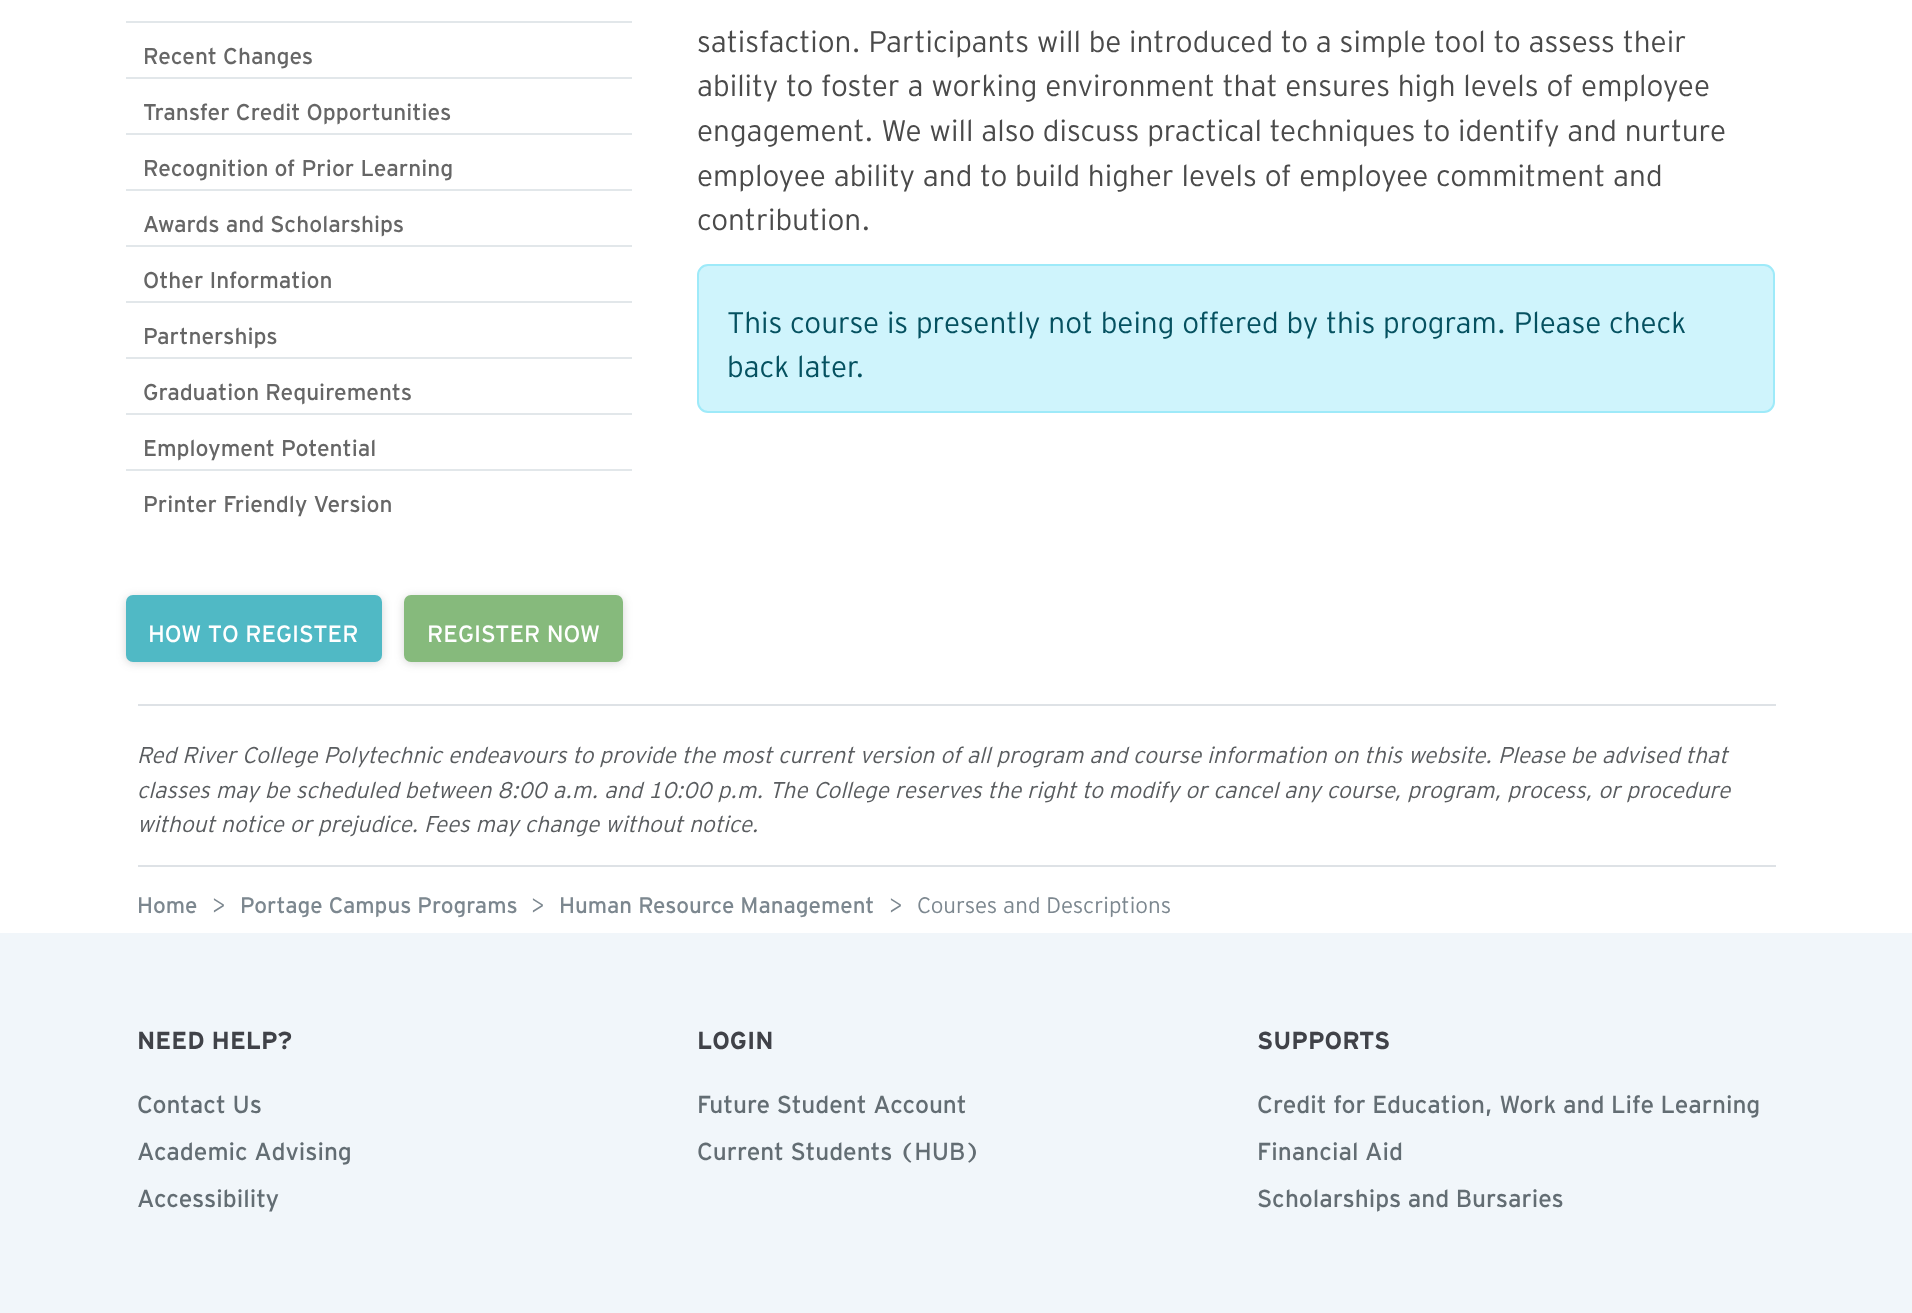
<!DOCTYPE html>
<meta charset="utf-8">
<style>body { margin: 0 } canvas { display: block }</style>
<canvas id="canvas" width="1912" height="1313"></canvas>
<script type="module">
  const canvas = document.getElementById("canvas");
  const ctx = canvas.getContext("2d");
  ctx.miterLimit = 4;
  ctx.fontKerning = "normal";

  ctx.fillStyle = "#ffffff";
  ctx.fillRect(0, 0, 1912, 1313);
  ctx.fillStyle = "#e2e7ea";
  ctx.fillRect(126, 21, 506, 2);
  ctx.fillRect(126, 77, 506, 2);
  ctx.font = "22.75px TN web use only";
  ctx.fillStyle = "#666666";
  ctx.fillText("Recent Changes", 143, 64);
  ctx.fillStyle = "#e2e7ea";
  ctx.fillRect(126, 133, 506, 2);
  ctx.fillStyle = "#666666";
  ctx.fillText("Transfer Credit Opportunities", 143, 120);
  ctx.fillStyle = "#e2e7ea";
  ctx.fillRect(126, 189, 506, 2);
  ctx.fillStyle = "#666666";
  ctx.fillText("Recognition of Prior Learning", 143, 176);
  ctx.fillStyle = "#e2e7ea";
  ctx.fillRect(126, 245, 506, 2);
  ctx.fillStyle = "#666666";
  ctx.fillText("Awards and Scholarships", 143, 232);
  ctx.fillStyle = "#e2e7ea";
  ctx.fillRect(126, 301, 506, 2);
  ctx.fillStyle = "#666666";
  ctx.fillText("Other Information", 143, 288);
  ctx.fillStyle = "#e2e7ea";
  ctx.fillRect(126, 357, 506, 2);
  ctx.fillStyle = "#666666";
  ctx.fillText("Partnerships", 143, 344);
  ctx.fillStyle = "#e2e7ea";
  ctx.fillRect(126, 413, 506, 2);
  ctx.fillStyle = "#666666";
  ctx.fillText("Graduation Requirements", 143, 400);
  ctx.fillStyle = "#e2e7ea";
  ctx.fillRect(126, 469, 506, 2);
  ctx.fillStyle = "#666666";
  ctx.fillText("Employment Potential", 143, 456);
  ctx.fillText("Printer Friendly Version", 143, 512);
  ctx.fillStyle = "rgba(54, 54, 54, 0.21)";
  ctx.filter = "blur(5px)";
  ctx.beginPath();
  ctx.roundRect(126, 597, 256, 66, 7);
  ctx.fill();
  ctx.filter = "none";
  ctx.fillStyle = "#50b9c5";
  ctx.beginPath();
  ctx.roundRect(126, 595, 256, 67, 7);
  ctx.fill();
  ctx.font = "23.6px TN web use only";
  ctx.fillStyle = "#ffffff";
  ctx.fillText("HOW TO REGISTER", 148, 642);
  ctx.fillStyle = "rgba(54, 54, 54, 0.21)";
  ctx.filter = "blur(5px)";
  ctx.beginPath();
  ctx.roundRect(404, 597, 219, 66, 7);
  ctx.fill();
  ctx.filter = "none";
  ctx.fillStyle = "#86ba7c";
  ctx.beginPath();
  ctx.roundRect(404, 595, 219, 67, 7);
  ctx.fill();
  ctx.fillStyle = "#ffffff";
  ctx.fillText("REGISTER NOW", 427, 642);
  ctx.font = "300 29.75px TN web use only";
  ctx.fillStyle = "#4a4a4a";
  ctx.fillText("satisfaction. Participants will be introduced to a simple tool to assess their", 697, 52);
  ctx.fillText("ability to foster a working environment that ensures high levels of employee", 697, 96);
  ctx.fillText("engagement. We will also discuss practical techniques to identify and nurture", 697, 141);
  ctx.fillText("employee ability and to build higher levels of employee commitment and", 697, 186);
  ctx.fillText("contribution.", 697, 230);
  ctx.fillStyle = "#cff4fc";
  ctx.beginPath();
  ctx.roundRect(698, 265, 1076, 147, 10);
  ctx.fill();
  ctx.strokeStyle = "#9eeaf9";
  ctx.lineWidth = 2;
  ctx.stroke();
  ctx.fillStyle = "#055160";
  ctx.fillText("This course is presently not being offered by this program. Please check", 727, 333);
  ctx.fillText("back later.", 727, 377);
  ctx.fillStyle = "#dee2e6";
  ctx.fillRect(138, 704, 1638, 2);
  ctx.font = "italic 300 22.75px TN web use only";
  ctx.fillStyle = "#595c5f";
  ctx.fillText("Red River College Polytechnic endeavours to provide the most current version of all program and course information on this website. Please be advised that", 137, 763);
  ctx.fillText("classes may be scheduled between 8:00 a.m. and 10:00 p.m. The College reserves the right to modify or cancel any course, program, process, or procedure", 137, 798);
  ctx.fillText("without notice or prejudice. Fees may change without notice.", 137, 832);
  ctx.fillStyle = "#dee2e6";
  ctx.fillRect(138, 865, 1638, 2);
  ctx.font = "22.4px TN web use only";
  ctx.fillStyle = "#7c878f";
  ctx.fillText("Home", 137, 913);
  ctx.font = "300 22.4px TN web use only";
  ctx.fillText(">", 212, 913);
  ctx.font = "22.4px TN web use only";
  ctx.fillText("Portage Campus Programs", 240, 913);
  ctx.font = "300 22.4px TN web use only";
  ctx.fillText(">", 531, 913);
  ctx.font = "22.4px TN web use only";
  ctx.fillText("Human Resource Management", 559, 913);
  ctx.font = "300 22.4px TN web use only";
  ctx.fillText(">", 889, 913);
  ctx.fillText("Courses and Descriptions", 917, 913);
  ctx.fillStyle = "#f1f6fa";
  ctx.fillRect(0, 933, 1912, 380);
  ctx.font = "bold 24.5px TN web use only";
  ctx.fillStyle = "#404248";
  ctx.fillText("NEED HELP?", 137, 1049);
  ctx.font = "24.5px TN web use only";
  ctx.fillStyle = "#636d73";
  ctx.fillText("Contact Us", 137, 1113);
  ctx.fillText("Academic Advising", 137, 1160);
  ctx.fillText("Accessibility", 137, 1207);
  ctx.font = "bold 24.5px TN web use only";
  ctx.fillStyle = "#404248";
  ctx.fillText("LOGIN", 697, 1049);
  ctx.font = "24.5px TN web use only";
  ctx.fillStyle = "#636d73";
  ctx.fillText("Future Student Account", 697, 1113);
  ctx.fillText("Current Students (HUB)", 697, 1160);
  ctx.font = "bold 24.5px TN web use only";
  ctx.fillStyle = "#404248";
  ctx.fillText("SUPPORTS", 1257, 1049);
  ctx.font = "24.5px TN web use only";
  ctx.fillStyle = "#636d73";
  ctx.fillText("Credit for Education, Work and Life Learning", 1257, 1113);
  ctx.fillText("Financial Aid", 1257, 1160);
  ctx.fillText("Scholarships and Bursaries", 1257, 1207);
</script>
